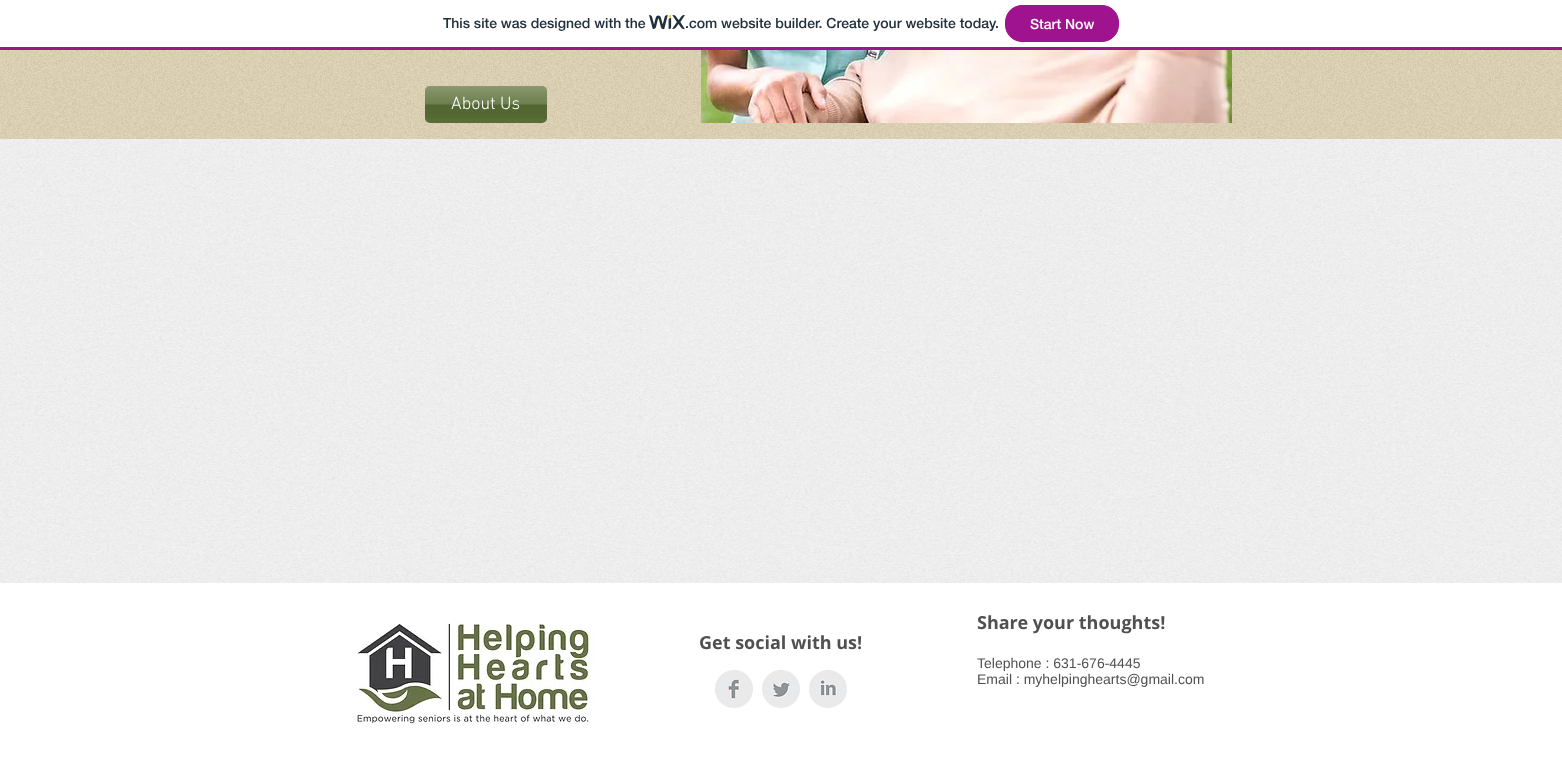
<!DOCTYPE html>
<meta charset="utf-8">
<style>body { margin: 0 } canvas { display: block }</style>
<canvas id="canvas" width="1562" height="768"></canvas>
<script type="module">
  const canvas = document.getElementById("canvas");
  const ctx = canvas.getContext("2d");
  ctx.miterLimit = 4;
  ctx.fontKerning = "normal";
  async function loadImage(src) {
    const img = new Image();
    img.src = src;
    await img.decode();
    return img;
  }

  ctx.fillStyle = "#ffffff";
  ctx.fillRect(0, 0, 1562, 768);
  ctx.fillStyle = "#a0138e";
  ctx.fillRect(0, 47, 1562, 3);
  ctx.font = "500 14px 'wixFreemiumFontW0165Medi'";
  ctx.fillStyle = "#20303c";
  ctx.fillText("This site was designed with the", 443, 28);
  ctx.drawImage(await loadImage("img1.png"), 649, 15, 36, 15);
  ctx.fillText(".com website builder. Create your website today.", 685, 28);
  ctx.fillStyle = "#a0138e";
  ctx.beginPath();
  ctx.roundRect(1005.5, 5.5, 113, 36, 16.5);
  ctx.fill();
  ctx.strokeStyle = "#a0138e";
  ctx.stroke();
  ctx.fillStyle = "#ffffff";
  ctx.fillText("Start Now", 1030, 29);
  ctx.drawImage(await loadImage("img2.png"), 0, 50, 1562, 533);
  ctx.fillStyle = "rgba(197, 155, 60, 0.3)";
  ctx.fillRect(0, 50, 1562, 89);
  ctx.drawImage(await loadImage("img3.png"), 0, 50, 1562, 89);
  ctx.fillStyle = "#596e35";
  ctx.beginPath();
  ctx.roundRect(425, 86, 122, 37, 5);
  ctx.fill();
  ctx.drawImage(await loadImage("img4.png"), 425, 86, 122, 33);
  ctx.font = "300 18px 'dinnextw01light'";
  ctx.fillStyle = "#ffffff";
  ctx.fillText("About Us", 451, 109);
  ctx.drawImage(await loadImage("img5.png"), 701, 50, 531, 73);
  ctx.drawImage(await loadImage("img6.png"), 354, 622, 240, 102);
  ctx.font = "bold 18px Open Sans";
  ctx.fillStyle = "#515050";
  ctx.fillText("Get social with us!", 699, 649);
  ctx.fillText("Share your thoughts!", 977, 629);
  ctx.font = "14px Liberation Sans";
  ctx.fillText("Telephone : 631-676-4445", 977, 668);
  ctx.fillText("Email : myhelpinghearts@gmail.com", 977, 684);
  ctx.drawImage(await loadImage("img7.png"), 715, 670, 38, 38);
  ctx.drawImage(await loadImage("img8.png"), 762, 670, 38, 38);
  ctx.drawImage(await loadImage("img9.png"), 809, 670, 38, 38);
</script>
